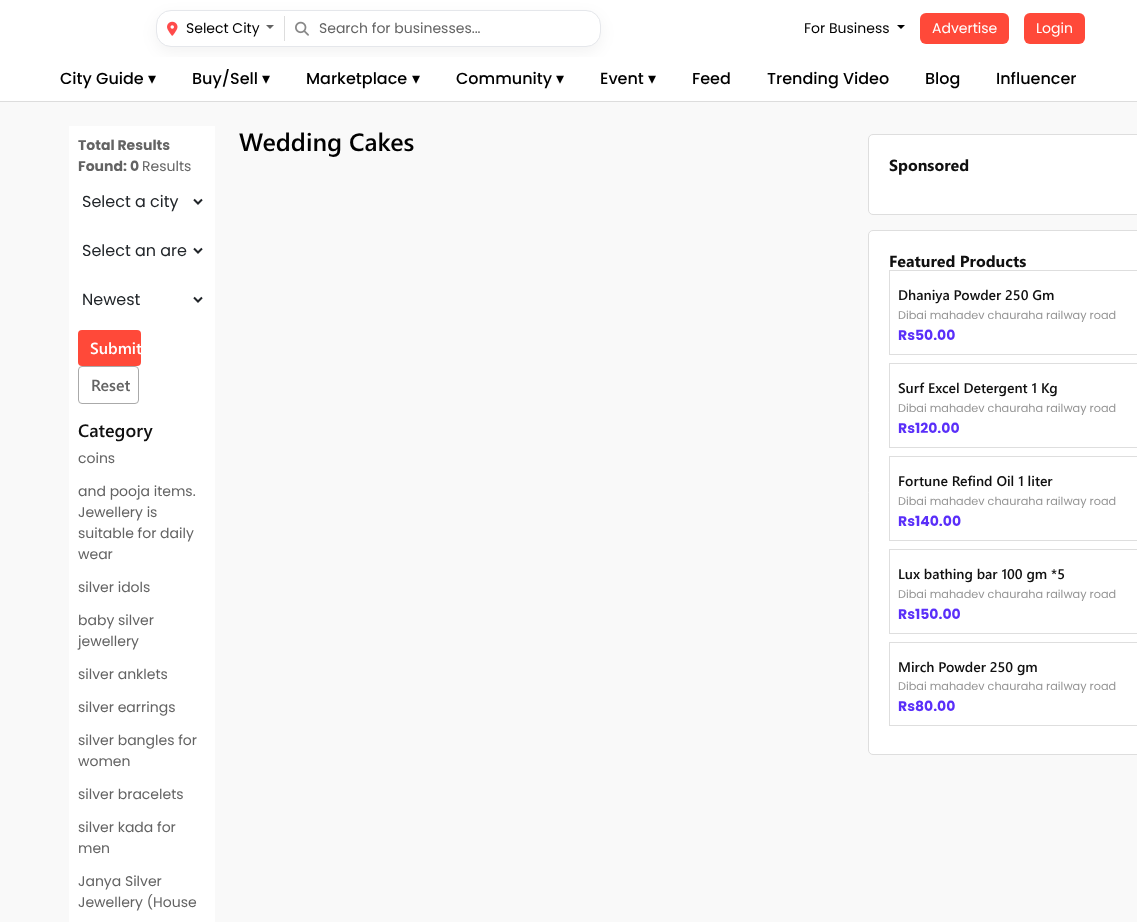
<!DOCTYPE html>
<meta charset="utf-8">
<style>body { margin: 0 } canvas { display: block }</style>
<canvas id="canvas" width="1137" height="922"></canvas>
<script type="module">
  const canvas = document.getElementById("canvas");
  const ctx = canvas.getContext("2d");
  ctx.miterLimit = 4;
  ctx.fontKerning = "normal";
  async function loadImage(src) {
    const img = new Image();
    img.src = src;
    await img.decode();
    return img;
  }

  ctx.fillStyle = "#f9f9f9";
  ctx.fillRect(0, 0, 1137, 922);
  ctx.fillStyle = "#ffffff";
  ctx.fillRect(0, 0, 1137, 57);
  ctx.fillStyle = "#dddddd";
  ctx.fillRect(0, 101, 1137, 1);
  ctx.fillStyle = "rgba(0, 0, 0, 0.05)";
  ctx.filter = "blur(7.5px)";
  ctx.beginPath();
  ctx.roundRect(156, 15, 445, 37, 15);
  ctx.fill();
  ctx.filter = "none";
  ctx.fillStyle = "#ffffff";
  ctx.beginPath();
  ctx.roundRect(156.5, 10.5, 444, 36, 14.5);
  ctx.fill();
  ctx.strokeStyle = "#e5e7eb";
  ctx.stroke();
  ctx.drawImage(await loadImage("img1.png"), 167, 21, 11, 15);
  ctx.font = "14px Poppins";
  ctx.fillStyle = "#000000";
  ctx.fillText("Select City", 186, 33);
  ctx.fillStyle = "#636363";
  ctx.beginPath();
  ctx.moveTo(266, 25);
  ctx.lineTo(274, 25);
  ctx.lineTo(270, 29);
  ctx.closePath();
  ctx.fill();
  ctx.fillStyle = "#dddddd";
  ctx.fillRect(284, 16, 1, 25);
  ctx.drawImage(await loadImage("img2.png"), 295, 21, 14, 15);
  ctx.fillStyle = "#636363";
  ctx.fillText("Search for businesses...", 319, 33);
  ctx.fillStyle = "#000000";
  ctx.fillText("For Business", 804, 33);
  ctx.beginPath();
  ctx.moveTo(897, 25);
  ctx.lineTo(905, 25);
  ctx.lineTo(901, 29);
  ctx.closePath();
  ctx.fill();
  ctx.fillStyle = "#ff4939";
  ctx.beginPath();
  ctx.roundRect(920, 13, 89, 31, 6);
  ctx.fill();
  ctx.fillStyle = "#ffffff";
  ctx.fillText("Advertise", 932, 33);
  ctx.fillStyle = "#ff4939";
  ctx.beginPath();
  ctx.roundRect(1024, 13, 61, 31, 6);
  ctx.fill();
  ctx.fillStyle = "#ffffff";
  ctx.fillText("Login", 1036, 33);
  ctx.fillRect(0, 57, 1137, 44);
  ctx.font = "500 16px Poppins";
  ctx.fillStyle = "#000000";
  ctx.fillText("City Guide", 60, 84);
  ctx.font = "16px DejaVu Sans";
  ctx.fillText("▾", 148, 84);
  ctx.font = "500 16px Poppins";
  ctx.fillText("Buy/Sell", 192, 84);
  ctx.font = "16px DejaVu Sans";
  ctx.fillText("▾", 262, 84);
  ctx.font = "500 16px Poppins";
  ctx.fillText("Marketplace", 306, 84);
  ctx.font = "16px DejaVu Sans";
  ctx.fillText("▾", 412, 84);
  ctx.font = "500 16px Poppins";
  ctx.fillText("Community", 456, 84);
  ctx.font = "16px DejaVu Sans";
  ctx.fillText("▾", 556, 84);
  ctx.font = "500 16px Poppins";
  ctx.fillText("Event", 600, 84);
  ctx.font = "16px DejaVu Sans";
  ctx.fillText("▾", 648, 84);
  ctx.font = "500 16px Poppins";
  ctx.fillText("Feed", 692, 84);
  ctx.fillText("Trending Video", 767, 84);
  ctx.fillText("Blog", 925, 84);
  ctx.fillText("Influencer", 996, 84);
  ctx.fillStyle = "#ffffff";
  ctx.fillRect(69, 126, 146, 796);
  ctx.font = "bold 14px Poppins";
  ctx.fillStyle = "#636363";
  ctx.fillText("Total Results", 78, 150);
  ctx.fillText("Found: 0", 78, 171);
  ctx.font = "14px Poppins";
  ctx.fillText("Results", 142, 171);
  ctx.beginPath();
  ctx.moveTo(194, 199.5);
  ctx.lineTo(198, 203.5);
  ctx.lineTo(202, 199.5);
  ctx.moveTo(194, 248.5);
  ctx.lineTo(198, 252.5);
  ctx.lineTo(202, 248.5);
  ctx.strokeStyle = "#212529";
  ctx.lineWidth = 2;
  ctx.stroke();
  ctx.font = "16px Poppins";
  ctx.fillStyle = "#212529";
  ctx.fillText("Select a city", 82, 207);
  ctx.fillText("Select an are", 82, 256);
  ctx.beginPath();
  ctx.moveTo(194, 297.5);
  ctx.lineTo(198, 301.5);
  ctx.lineTo(202, 297.5);
  ctx.stroke();
  ctx.fillText("Newest", 82, 305);
  ctx.fillStyle = "#ff4939";
  ctx.beginPath();
  ctx.roundRect(78, 330, 63, 36, 4);
  ctx.fill();
  ctx.font = "600 16px Segoe UI";
  ctx.fillStyle = "#ffffff";
  ctx.fillText("Submit", 90, 354);
  ctx.beginPath();
  ctx.roundRect(78.5, 366.5, 60, 37, 3.5);
  ctx.strokeStyle = "#aaaaaa";
  ctx.lineWidth = 1;
  ctx.stroke();
  ctx.fillStyle = "#636363";
  ctx.fillText("Reset", 91, 391);
  ctx.font = "600 18px Segoe UI";
  ctx.fillStyle = "#101010";
  ctx.fillText("Category", 78, 437);
  ctx.font = "14px Poppins";
  ctx.fillStyle = "#636363";
  ctx.fillText("coins", 78, 463);
  ctx.fillText("and pooja items.", 78, 496);
  ctx.fillText("Jewellery is", 78, 517);
  ctx.fillText("suitable for daily", 78, 538);
  ctx.fillText("wear", 78, 559);
  ctx.fillText("silver idols", 78, 592);
  ctx.fillText("baby silver", 78, 625);
  ctx.fillText("jewellery", 78, 646);
  ctx.fillText("silver anklets", 78, 679);
  ctx.fillText("silver earrings", 78, 712);
  ctx.fillText("silver bangles for", 78, 745);
  ctx.fillText("women", 78, 766);
  ctx.fillText("silver bracelets", 78, 799);
  ctx.fillText("silver kada for", 78, 832);
  ctx.fillText("men", 78, 853);
  ctx.fillText("Janya Silver", 78, 886);
  ctx.fillText("Jewellery (House", 78, 907);
  ctx.font = "600 25px Segoe UI";
  ctx.fillStyle = "#000000";
  ctx.fillText("Wedding Cakes", 239, 151);
  ctx.fillStyle = "#ffffff";
  ctx.beginPath();
  ctx.roundRect(868.5, 134.5, 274, 80, 4.5);
  ctx.fill();
  ctx.strokeStyle = "#dedede";
  ctx.stroke();
  ctx.font = "bold 16px Segoe UI";
  ctx.fillStyle = "#101010";
  ctx.fillText("Sponsored", 889, 171);
  ctx.fillStyle = "#ffffff";
  ctx.beginPath();
  ctx.roundRect(868.5, 230.5, 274, 524, 4.5);
  ctx.fill();
  ctx.stroke();
  ctx.fillStyle = "#101010";
  ctx.fillText("Featured Products", 889, 267);
  ctx.strokeRect(889.5, 270.5, 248, 84);
  ctx.font = "600 14px Segoe UI";
  ctx.fillText("Dhaniya Powder 250 Gm", 898, 300);
  ctx.font = "11.25px Poppins";
  ctx.fillStyle = "#949494";
  ctx.fillText("Dibai mahadev chauraha railway road", 898, 319);
  ctx.font = "bold 14px Poppins";
  ctx.fillStyle = "#5a2ff9";
  ctx.fillText("Rs50.00", 898, 340);
  ctx.strokeRect(889.5, 363.5, 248, 84);
  ctx.font = "600 14px Segoe UI";
  ctx.fillStyle = "#101010";
  ctx.fillText("Surf Excel Detergent 1 Kg", 898, 393);
  ctx.font = "11.25px Poppins";
  ctx.fillStyle = "#949494";
  ctx.fillText("Dibai mahadev chauraha railway road", 898, 412);
  ctx.font = "bold 14px Poppins";
  ctx.fillStyle = "#5a2ff9";
  ctx.fillText("Rs120.00", 898, 433);
  ctx.strokeRect(889.5, 456.5, 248, 84);
  ctx.font = "600 14px Segoe UI";
  ctx.fillStyle = "#101010";
  ctx.fillText("Fortune Refind Oil 1 liter", 898, 486);
  ctx.font = "11.25px Poppins";
  ctx.fillStyle = "#949494";
  ctx.fillText("Dibai mahadev chauraha railway road", 898, 505);
  ctx.font = "bold 14px Poppins";
  ctx.fillStyle = "#5a2ff9";
  ctx.fillText("Rs140.00", 898, 526);
  ctx.strokeRect(889.5, 549.5, 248, 84);
  ctx.font = "600 14px Segoe UI";
  ctx.fillStyle = "#101010";
  ctx.fillText("Lux bathing bar 100 gm *5", 898, 579);
  ctx.font = "11.25px Poppins";
  ctx.fillStyle = "#949494";
  ctx.fillText("Dibai mahadev chauraha railway road", 898, 598);
  ctx.font = "bold 14px Poppins";
  ctx.fillStyle = "#5a2ff9";
  ctx.fillText("Rs150.00", 898, 619);
  ctx.strokeRect(889.5, 642.5, 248, 83);
  ctx.font = "600 14px Segoe UI";
  ctx.fillStyle = "#101010";
  ctx.fillText("Mirch Powder 250 gm", 898, 672);
  ctx.font = "11.25px Poppins";
  ctx.fillStyle = "#949494";
  ctx.fillText("Dibai mahadev chauraha railway road", 898, 690);
  ctx.font = "bold 14px Poppins";
  ctx.fillStyle = "#5a2ff9";
  ctx.fillText("Rs80.00", 898, 711);
</script>
